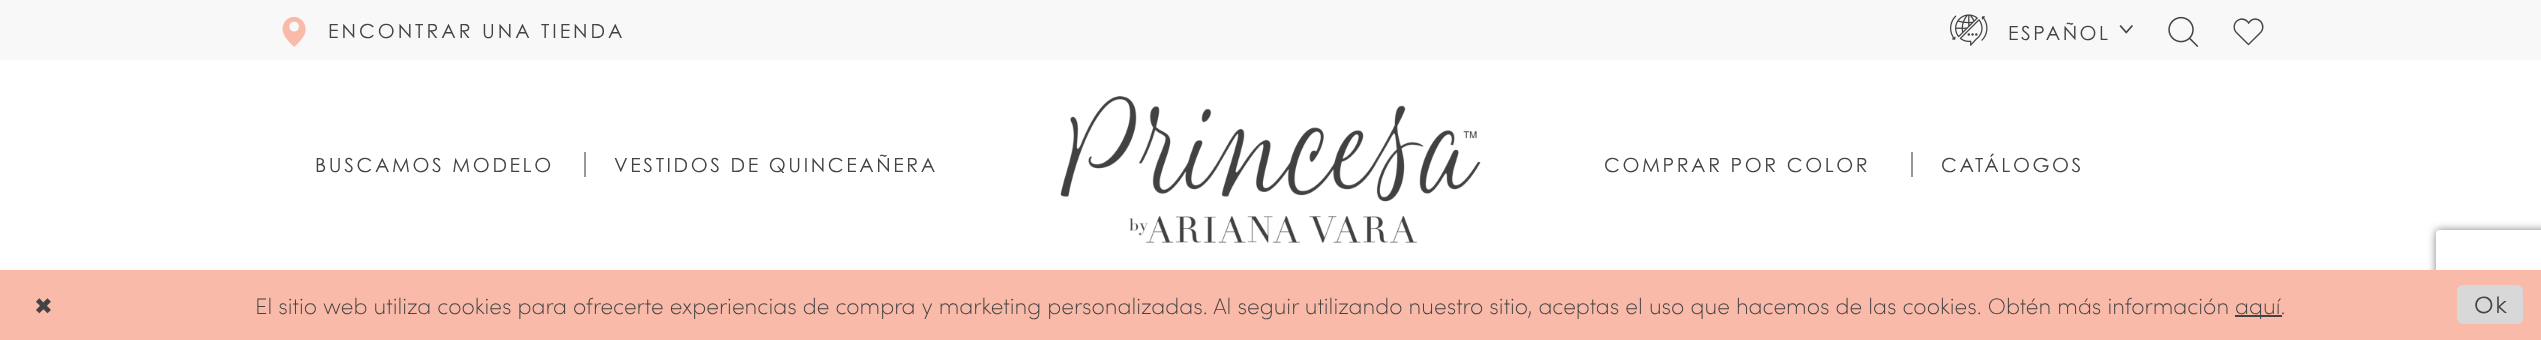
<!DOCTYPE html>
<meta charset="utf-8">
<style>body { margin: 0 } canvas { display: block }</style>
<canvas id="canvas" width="2541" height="340"></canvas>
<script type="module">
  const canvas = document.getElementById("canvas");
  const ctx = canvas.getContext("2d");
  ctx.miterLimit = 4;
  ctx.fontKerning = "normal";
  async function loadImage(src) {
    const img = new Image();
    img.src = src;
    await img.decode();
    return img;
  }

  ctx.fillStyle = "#ffffff";
  ctx.fillRect(0, 0, 2541, 340);
  ctx.fillStyle = "#f8f8f8";
  ctx.fillRect(0, 0, 2541, 60);
  ctx.drawImage(await loadImage("img1.png"), 282, 16, 24, 31);
  ctx.letterSpacing = "3px";
  ctx.font = "19.5px Century Gothic";
  ctx.fillStyle = "#434343";
  ctx.fillText("ENCONTRAR UNA TIENDA", 328, 38);
  ctx.drawImage(await loadImage("img2.png"), 1950, 14, 38, 32);
  ctx.letterSpacing = "2.5px";
  ctx.fillText("ESPAÑOL", 2008, 40);
  ctx.drawImage(await loadImage("img3.png"), 2119, 25, 14, 9);
  ctx.drawImage(await loadImage("img4.png"), 2168, 16, 31, 31);
  ctx.drawImage(await loadImage("img5.png"), 2233, 18, 31, 28);
  ctx.drawImage(await loadImage("img6.png"), 1060, 96, 421, 147);
  ctx.letterSpacing = "2.6px";
  ctx.fillText("BUSCAMOS MODELO", 315, 172);
  ctx.fillStyle = "#979797";
  ctx.fillRect(584, 152, 2, 25);
  ctx.fillStyle = "#434343";
  ctx.fillText("VESTIDOS DE QUINCEAÑERA", 614, 172);
  ctx.fillText("COMPRAR POR COLOR", 1604, 172);
  ctx.fillStyle = "#979797";
  ctx.fillRect(1911, 152, 2, 25);
  ctx.fillStyle = "#434343";
  ctx.fillText("CATÁLOGOS", 1941, 172);
  ctx.save();
  ctx.beginPath();
  ctx.moveTo(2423, 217);
  ctx.lineTo(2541, 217);
  ctx.lineTo(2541, 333);
  ctx.lineTo(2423, 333);
  ctx.closePath();
  ctx.moveTo(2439, 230);
  ctx.lineTo(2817, 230);
  ctx.bezierCurveTo(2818.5, 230, 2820, 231.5, 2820, 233);
  ctx.lineTo(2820, 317);
  ctx.bezierCurveTo(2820, 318.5, 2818.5, 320, 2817, 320);
  ctx.lineTo(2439, 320);
  ctx.bezierCurveTo(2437.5, 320, 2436, 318.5, 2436, 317);
  ctx.lineTo(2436, 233);
  ctx.bezierCurveTo(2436, 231.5, 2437.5, 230, 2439, 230);
  ctx.closePath();
  ctx.clip("evenodd");
  ctx.fillStyle = "#808080";
  ctx.filter = "blur(4px)";
  ctx.beginPath();
  ctx.roundRect(2436, 230, 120, 90, 3);
  ctx.fill();
  ctx.filter = "none";
  ctx.restore();
  ctx.fillStyle = "#f9baa9";
  ctx.fillRect(0, 270, 2541, 70);
  ctx.letterSpacing = "2px";
  ctx.font = "22.5px DejaVu Sans";
  ctx.fillStyle = "#434343";
  ctx.fillText("✖", 34, 314);
  ctx.letterSpacing = "0px";
  ctx.font = "200 22.5px Sofia";
  ctx.fillText("El sitio web utiliza cookies para ofrecerte experiencias de compra y marketing personalizadas. Al seguir utilizando nuestro sitio, aceptas el uso que hacemos de las cookies. Obtén más información", 255, 314);
  ctx.fillRect(2235, 315, 47, 2);
  ctx.fillText("aquí.", 2235, 314);
  ctx.fillStyle = "#d8d8d8";
  ctx.beginPath();
  ctx.roundRect(2457, 285, 66, 39, 6);
  ctx.fill();
  ctx.letterSpacing = "2px";
  ctx.font = "22.5px Century Gothic";
  ctx.fillStyle = "#434343";
  ctx.fillText("Ok", 2474, 313);
</script>
